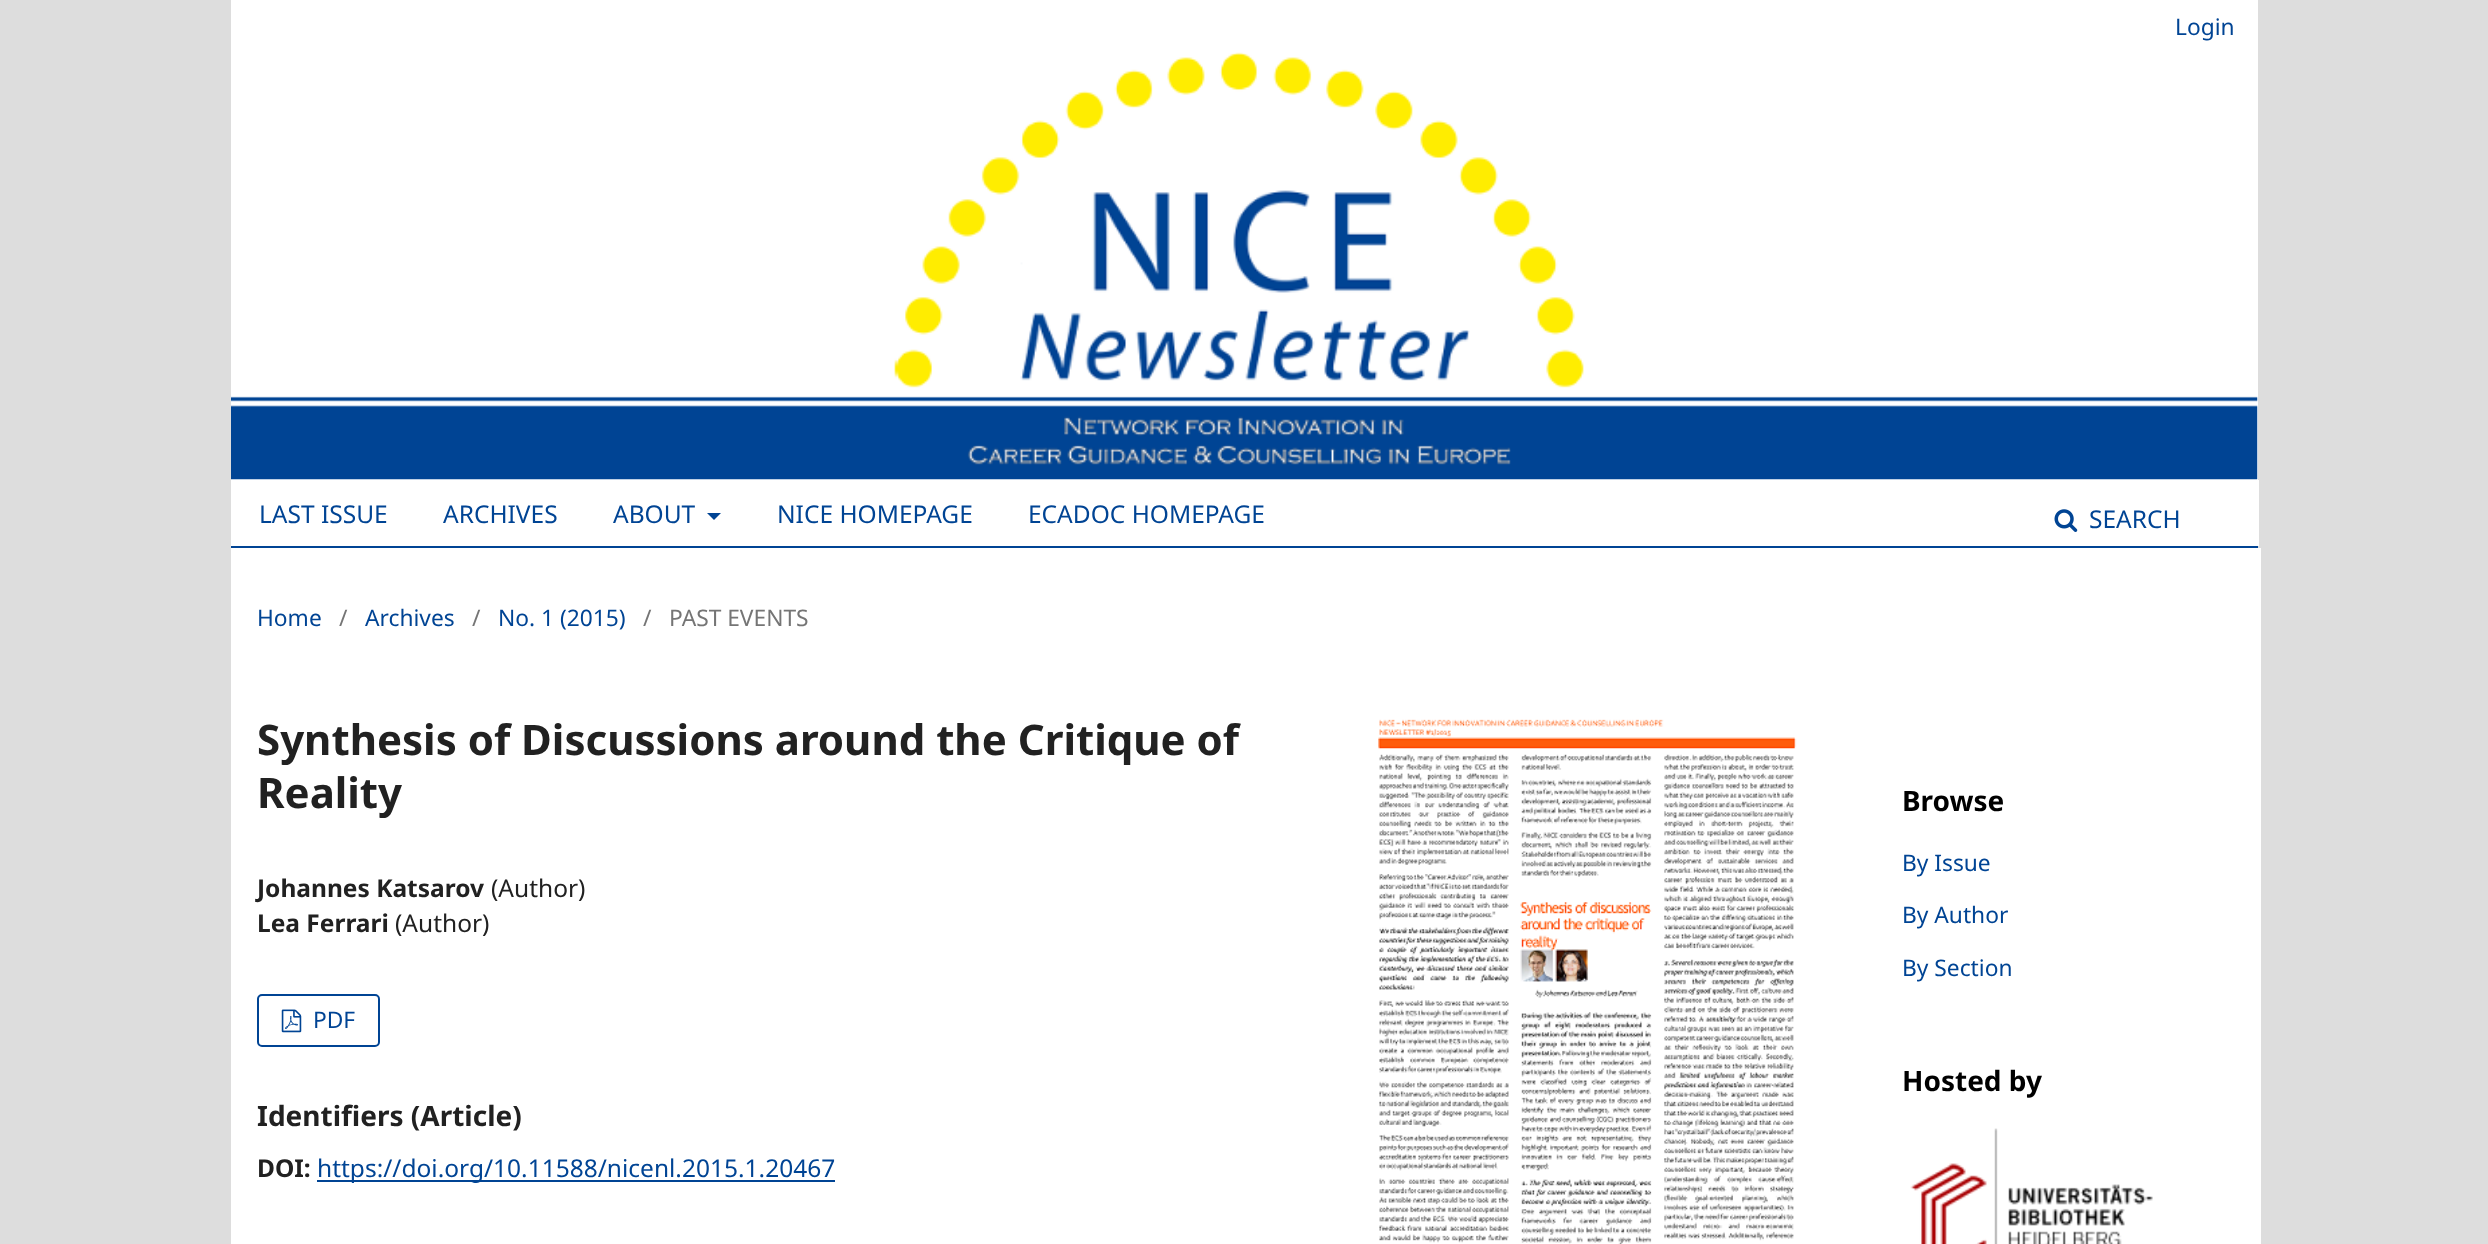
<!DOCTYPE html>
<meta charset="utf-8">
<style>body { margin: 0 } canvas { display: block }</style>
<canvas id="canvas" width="2488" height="1244"></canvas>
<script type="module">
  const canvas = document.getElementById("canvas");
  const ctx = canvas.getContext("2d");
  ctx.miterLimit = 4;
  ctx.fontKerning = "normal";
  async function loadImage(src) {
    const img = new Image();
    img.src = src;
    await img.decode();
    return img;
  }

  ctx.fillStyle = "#dddddd";
  ctx.fillRect(0, 0, 2488, 1244);
  ctx.fillStyle = "#ffffff";
  ctx.fillRect(231, 0, 2027, 546);
  ctx.fillStyle = "#004494";
  ctx.fillRect(231, 546, 2027, 2);
  ctx.font = "22.75px Noto Sans";
  ctx.fillText("Login", 2175, 35);
  ctx.fillStyle = "#ffffff";
  ctx.fillRect(2258, 480, 1, 66);
  ctx.font = "24.5px Noto Sans";
  ctx.fillStyle = "#004494";
  ctx.fillText("LAST ISSUE", 259, 523);
  ctx.fillText("ARCHIVES", 443, 523);
  ctx.fillText("ABOUT", 613, 523);
  ctx.beginPath();
  ctx.moveTo(707, 513);
  ctx.lineTo(721, 513);
  ctx.lineTo(714, 520);
  ctx.closePath();
  ctx.fill();
  ctx.fillText("NICE HOMEPAGE", 777, 523);
  ctx.fillText("ECADOC HOMEPAGE", 1028, 523);
  ctx.drawImage(await loadImage("img1.png"), 2054, 509, 24, 23);
  ctx.fillText("SEARCH", 2089, 528);
  ctx.drawImage(await loadImage("img2.png"), 231, 52, 2027, 428);
  ctx.fillStyle = "#ffffff";
  ctx.fillRect(231, 548, 2030, 696);
  ctx.font = "22.75px Noto Sans";
  ctx.fillStyle = "#004494";
  ctx.fillText("Home", 257, 626);
  ctx.fillStyle = "#757575";
  ctx.fillText("/", 339, 626);
  ctx.fillStyle = "#004494";
  ctx.fillText("Archives", 365, 626);
  ctx.fillStyle = "#757575";
  ctx.fillText("/", 472, 626);
  ctx.fillStyle = "#004494";
  ctx.fillText("No. 1 (2015)", 498, 626);
  ctx.fillStyle = "#757575";
  ctx.fillText("/", 643, 626);
  ctx.fillText("PAST EVENTS", 669, 626);
  ctx.font = "bold 42px Noto Sans";
  ctx.fillStyle = "#212121";
  ctx.fillText("Synthesis of Discussions around the Critique of", 257, 755);
  ctx.fillText("Reality", 257, 808);
  ctx.font = "bold 24.5px Noto Sans";
  ctx.fillText("Johannes Katsarov", 257, 897);
  ctx.font = "24.5px Noto Sans";
  ctx.fillText("(Author)", 491, 897);
  ctx.font = "bold 24.5px Noto Sans";
  ctx.fillText("Lea Ferrari", 257, 932);
  ctx.font = "24.5px Noto Sans";
  ctx.fillText("(Author)", 395, 932);
  ctx.beginPath();
  ctx.roundRect(258, 995, 121, 51, 4);
  ctx.strokeStyle = "#004494";
  ctx.lineWidth = 2;
  ctx.stroke();
  ctx.drawImage(await loadImage("img3.png"), 281, 1009, 21, 24);
  ctx.font = "22.75px Noto Sans";
  ctx.fillStyle = "#004494";
  ctx.fillText("PDF", 313, 1028);
  ctx.font = "bold 28px Noto Sans";
  ctx.fillStyle = "#212121";
  ctx.fillText("Identifiers (Article)", 257, 1126);
  ctx.font = "bold 24.5px Noto Sans";
  ctx.fillText("DOI:", 257, 1177);
  ctx.fillStyle = "#004494";
  ctx.fillRect(317, 1180, 518, 2);
  ctx.font = "24.5px Noto Sans";
  ctx.fillText("https://doi.org/10.11588/nicenl.2015.1.20467", 317, 1177);
  ctx.drawImage(await loadImage("img4.png"), 1378, 719, 419, 525);
  ctx.font = "bold 28px Noto Sans";
  ctx.fillStyle = "#000000";
  ctx.fillText("Browse", 1902, 811);
  ctx.font = "22.75px Noto Sans";
  ctx.fillStyle = "#004494";
  ctx.fillText("By Issue", 1902, 871);
  ctx.fillText("By Author", 1902, 923);
  ctx.fillText("By Section", 1902, 976);
  ctx.font = "bold 28px Noto Sans";
  ctx.fillStyle = "#000000";
  ctx.fillText("Hosted by", 1902, 1091);
  ctx.drawImage(await loadImage("img5.png"), 1910, 1128, 243, 116);
</script>
